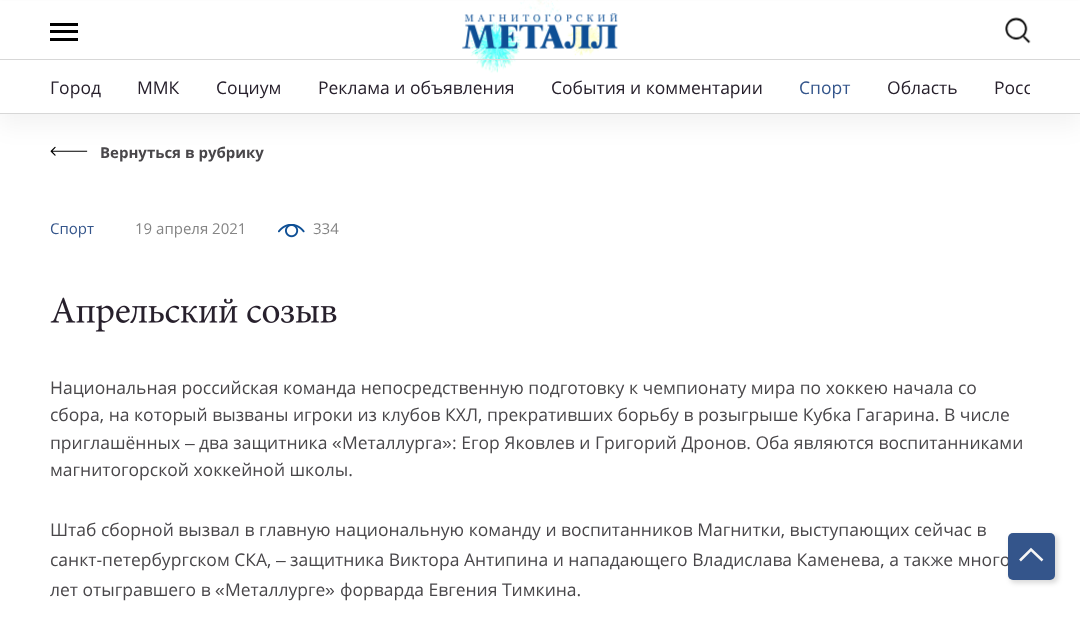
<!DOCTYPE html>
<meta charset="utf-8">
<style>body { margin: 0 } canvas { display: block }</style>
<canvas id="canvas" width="1080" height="630"></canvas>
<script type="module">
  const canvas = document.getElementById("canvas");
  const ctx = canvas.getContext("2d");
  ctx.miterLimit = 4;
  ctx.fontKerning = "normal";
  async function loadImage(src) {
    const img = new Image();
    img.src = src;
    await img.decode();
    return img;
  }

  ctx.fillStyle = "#ffffff";
  ctx.fillRect(0, 0, 1080, 630);
  ctx.drawImage(await loadImage("img4.png"), 50, 146, 38, 10);
  ctx.fillStyle = "rgba(0, 0, 0, 0.05)";
  ctx.filter = "blur(12.5px)";
  ctx.beginPath();
  ctx.rect(0, 11, 1080, 114);
  ctx.fill();
  ctx.filter = "none";
  ctx.fillStyle = "#ffffff";
  ctx.fillRect(0, 1, 1080, 112);
  ctx.fillStyle = "#000000";
  ctx.fillRect(50, 23, 28, 3);
  ctx.fillRect(50, 30, 28, 3);
  ctx.fillRect(50, 38, 28, 3);
  ctx.drawImage(await loadImage("img1.png"), 470, 0, 132, 73);
  ctx.drawImage(await loadImage("img2.png"), 462, 13, 156, 36);
  ctx.drawImage(await loadImage("img3.png"), 1005, 17, 26, 27);
  ctx.fillStyle = "#d7d7d7";
  ctx.fillRect(0, 59, 1080, 1);
  ctx.fillRect(0, 113, 1080, 1);
  ctx.font = "17.5px Open Sans";
  ctx.fillStyle = "#27202c";
  ctx.fillText("Город", 50, 94);
  ctx.fillText("ММК", 137, 94);
  ctx.fillText("Социум", 216, 94);
  ctx.fillText("Реклама и объявления", 318, 94);
  ctx.fillText("События и комментарии", 551, 94);
  ctx.fillStyle = "#34558b";
  ctx.fillText("Спорт", 799, 94);
  ctx.fillStyle = "#27202c";
  ctx.fillText("Область", 887, 94);
  ctx.save();
  ctx.beginPath();
  ctx.rect(50, 60, 980, 53);
  ctx.clip();
  ctx.fillText("Росс", 994, 94);
  ctx.restore();
  ctx.font = "bold 15px Open Sans";
  ctx.fillStyle = "#49474a";
  ctx.fillText("Вернуться в рубрику", 100, 158);
  ctx.font = "15px Open Sans";
  ctx.fillStyle = "#34558b";
  ctx.fillText("Спорт", 50, 234);
  ctx.fillStyle = "#848484";
  ctx.fillText("19 апреля 2021", 135, 234);
  ctx.drawImage(await loadImage("img5.png"), 278, 224, 27, 14);
  ctx.fillText("334", 313, 234);
  ctx.drawImage(await loadImage("img6.png"), 50, 297, 287, 35);
  ctx.font = "17.5px Open Sans";
  ctx.fillStyle = "#49474a";
  ctx.fillText("Национальная российская команда непосредственную подготовку к чемпионату мира по хоккею начала со", 50, 394);
  ctx.fillText("сбора, на который вызваны игроки из клубов КХЛ, прекративших борьбу в розыгрыше Кубка Гагарина. В числе", 50, 421);
  ctx.fillText("приглашённых", 50, 449);
  ctx.font = "17.5px Liberation Sans";
  ctx.fillText("–", 185, 449);
  ctx.font = "17.5px Open Sans";
  ctx.fillText("два защитника", 199, 449);
  ctx.font = "17.5px Liberation Sans";
  ctx.fillText("«", 332, 449);
  ctx.font = "17.5px Open Sans";
  ctx.fillText("Металлурга", 342, 449);
  ctx.font = "17.5px Liberation Sans";
  ctx.fillText("»", 442, 449);
  ctx.font = "17.5px Open Sans";
  ctx.fillText(": Егор Яковлев и Григорий Дронов. Оба являются воспитанниками", 452, 449);
  ctx.fillText("магнитогорской хоккейной школы.", 50, 476);
  ctx.fillText("Штаб сборной вызвал в главную национальную команду и воспитанников Магнитки, выступающих сейчас в", 50, 536);
  ctx.fillText("санкт-петербургском СКА,", 50, 566);
  ctx.font = "17.5px Liberation Sans";
  ctx.fillText("–", 276, 566);
  ctx.font = "17.5px Open Sans";
  ctx.fillText("защитника Виктора Антипина и нападающего Владислава Каменева, а также много", 290, 566);
  ctx.fillText("лет отыгравшего в", 50, 596);
  ctx.font = "17.5px Liberation Sans";
  ctx.fillText("«", 215, 596);
  ctx.font = "17.5px Open Sans";
  ctx.fillText("Металлурге", 225, 596);
  ctx.font = "17.5px Liberation Sans";
  ctx.fillText("»", 325, 596);
  ctx.font = "17.5px Open Sans";
  ctx.fillText("форварда Евгения Тимкина.", 340, 596);
  ctx.fillStyle = "rgba(0, 0, 0, 0.15)";
  ctx.filter = "blur(2.5px)";
  ctx.beginPath();
  ctx.roundRect(1010, 535, 48, 48, 5);
  ctx.fill();
  ctx.filter = "none";
  ctx.fillStyle = "#34558b";
  ctx.beginPath();
  ctx.roundRect(1008, 533, 47, 47, 5);
  ctx.fill();
  ctx.beginPath();
  ctx.moveTo(1042.5, 560.5);
  ctx.lineTo(1031, 549.5);
  ctx.lineTo(1020, 560.5);
  ctx.strokeStyle = "#f6f6f6";
  ctx.lineWidth = 2.5;
  ctx.stroke();
</script>
